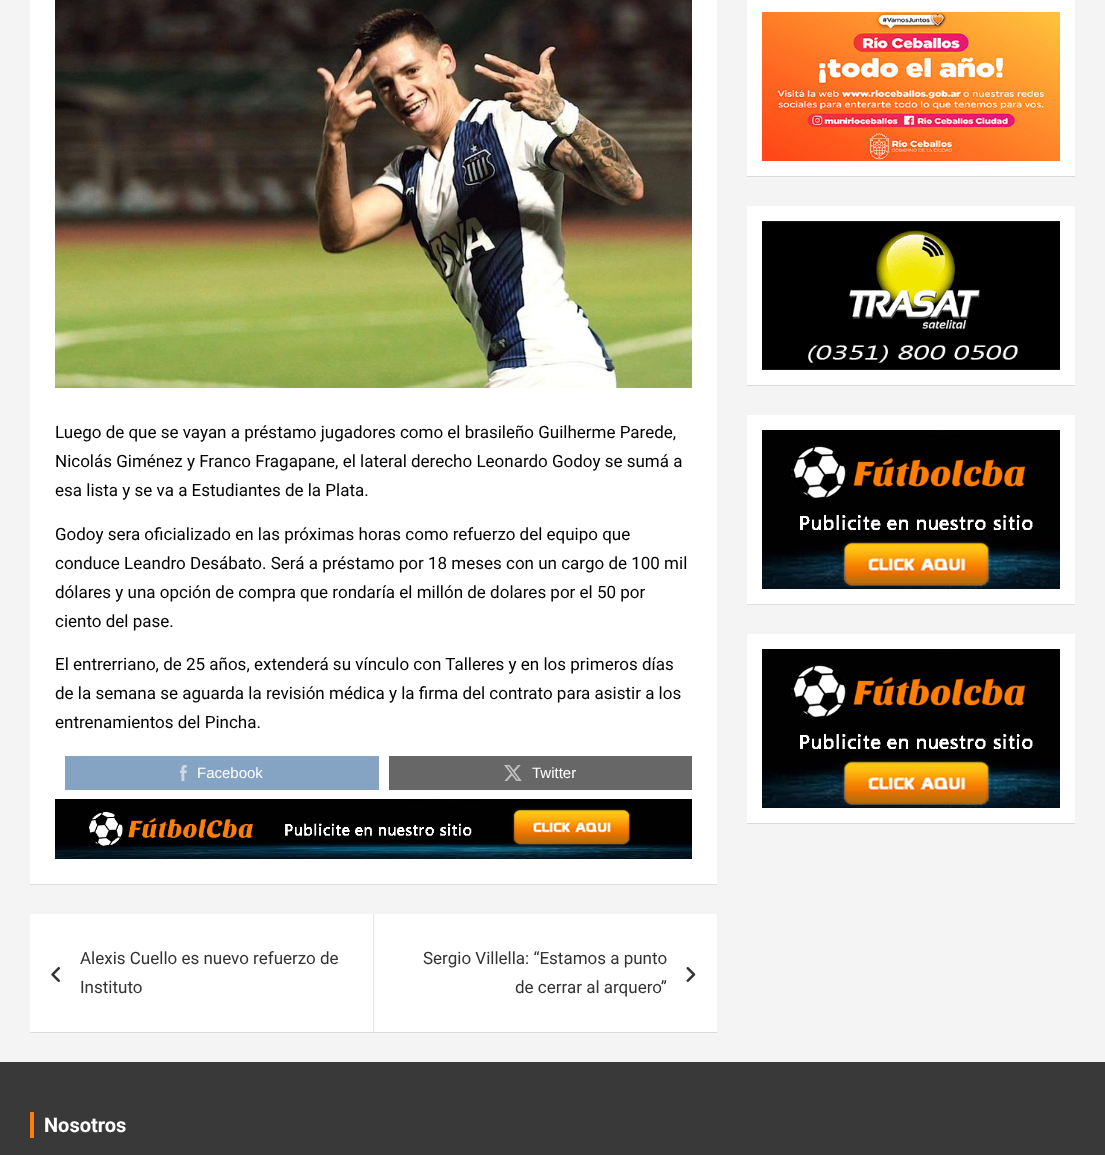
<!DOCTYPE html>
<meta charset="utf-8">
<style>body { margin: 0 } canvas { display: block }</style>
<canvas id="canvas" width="1105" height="1155"></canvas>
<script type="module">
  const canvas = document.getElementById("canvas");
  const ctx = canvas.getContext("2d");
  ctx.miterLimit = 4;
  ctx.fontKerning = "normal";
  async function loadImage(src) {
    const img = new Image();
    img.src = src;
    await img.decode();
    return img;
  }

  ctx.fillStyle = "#f4f4f4";
  ctx.fillRect(0, 0, 1105, 1155);
  ctx.fillStyle = "rgba(0, 0, 0, 0.1)";
  ctx.filter = "blur(0.5px)";
  ctx.beginPath();
  ctx.rect(30, -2, 687, 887);
  ctx.fill();
  ctx.filter = "none";
  ctx.fillStyle = "#ffffff";
  ctx.fillRect(30, 0, 687, 884);
  ctx.drawImage(await loadImage("img1.png"), 55, 0, 637, 388);
  ctx.font = "17px Roboto";
  ctx.fillStyle = "#000000";
  ctx.fillText("Luego de que se vayan a préstamo jugadores como el brasileño Guilherme Parede,", 55, 438);
  ctx.fillText("Nicolás Giménez y Franco Fragapane, el lateral derecho Leonardo Godoy se sumá a", 55, 467);
  ctx.fillText("esa lista y se va a Estudiantes de la Plata.", 55, 496);
  ctx.fillText("Godoy sera oficializado en las próximas horas como refuerzo del equipo que", 55, 540);
  ctx.fillText("conduce Leandro Desábato. Será a préstamo por 18 meses con un cargo de 100 mil", 55, 569);
  ctx.fillText("dólares y una opción de compra que rondaría el millón de dolares por el 50 por", 55, 598);
  ctx.fillText("ciento del pase.", 55, 627);
  ctx.fillText("El entrerriano, de 25 años, extenderá su vínculo con Talleres y en los primeros días", 55, 670);
  ctx.fillText("de la semana se aguarda la revisión médica y la firma del contrato para asistir a los", 55, 699);
  ctx.fillText("entrenamientos del Pincha.", 55, 728);
  ctx.fillStyle = "#85a3c2";
  ctx.fillRect(65, 756, 314, 34);
  ctx.drawImage(await loadImage("img2.png"), 180, 765, 7, 16);
  ctx.font = "15px Liberation Sans";
  ctx.fillStyle = "#ffffff";
  ctx.fillText("Facebook", 197, 778);
  ctx.fillStyle = "#676767";
  ctx.fillRect(389, 756, 303, 34);
  ctx.drawImage(await loadImage("img3.png"), 504, 765, 18, 16);
  ctx.fillStyle = "#ffffff";
  ctx.fillText("Twitter", 532, 778);
  ctx.drawImage(await loadImage("img4.png"), 55, 799, 637, 60);
  ctx.fillStyle = "rgba(0, 0, 0, 0.1)";
  ctx.filter = "blur(0.5px)";
  ctx.beginPath();
  ctx.rect(30, 915, 687, 118);
  ctx.fill();
  ctx.filter = "none";
  ctx.fillStyle = "#ffffff";
  ctx.fillRect(30, 914, 687, 118);
  ctx.font = "17px Roboto";
  ctx.fillStyle = "#333333";
  ctx.fillText("Alexis Cuello es nuevo refuerzo de", 80, 964);
  ctx.drawImage(await loadImage("img5.png"), 51, 967, 9, 15);
  ctx.fillText("Instituto", 80, 993);
  ctx.fillStyle = "#e6e6e6";
  ctx.fillRect(373, 914, 1, 118);
  ctx.fillStyle = "#333333";
  ctx.fillText("Sergio Villella: “Estamos a punto", 423, 964);
  ctx.drawImage(await loadImage("img6.png"), 686, 967, 10, 15);
  ctx.fillText("de cerrar al arquero”", 515, 993);
  ctx.fillStyle = "rgba(0, 0, 0, 0.1)";
  ctx.filter = "blur(0.5px)";
  ctx.beginPath();
  ctx.rect(747, -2, 328, 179);
  ctx.fill();
  ctx.filter = "none";
  ctx.fillStyle = "#ffffff";
  ctx.fillRect(747, 0, 328, 176);
  ctx.drawImage(await loadImage("img7.png"), 762, 12, 298, 149);
  ctx.fillStyle = "rgba(0, 0, 0, 0.1)";
  ctx.filter = "blur(0.5px)";
  ctx.beginPath();
  ctx.rect(747, 207, 328, 179);
  ctx.fill();
  ctx.filter = "none";
  ctx.fillStyle = "#ffffff";
  ctx.fillRect(747, 206, 328, 179);
  ctx.drawImage(await loadImage("img8.png"), 762, 221, 298, 149);
  ctx.fillStyle = "rgba(0, 0, 0, 0.1)";
  ctx.filter = "blur(0.5px)";
  ctx.beginPath();
  ctx.rect(747, 416, 328, 189);
  ctx.fill();
  ctx.filter = "none";
  ctx.fillStyle = "#ffffff";
  ctx.fillRect(747, 415, 328, 189);
  ctx.drawImage(await loadImage("img9.png"), 762, 430, 298, 159);
  ctx.fillStyle = "rgba(0, 0, 0, 0.1)";
  ctx.filter = "blur(0.5px)";
  ctx.beginPath();
  ctx.rect(747, 635, 328, 189);
  ctx.fill();
  ctx.filter = "none";
  ctx.fillStyle = "#ffffff";
  ctx.fillRect(747, 634, 328, 189);
  ctx.drawImage(await loadImage("img10.png"), 762, 649, 298, 159);
  ctx.fillStyle = "#393939";
  ctx.fillRect(0, 1062, 1105, 93);
  ctx.fillStyle = "#ff7e03";
  ctx.fillRect(30, 1112, 4, 26);
  ctx.font = "bold 20px Roboto";
  ctx.fillStyle = "#ffffff";
  ctx.fillText("Nosotros", 44, 1132);
</script>
